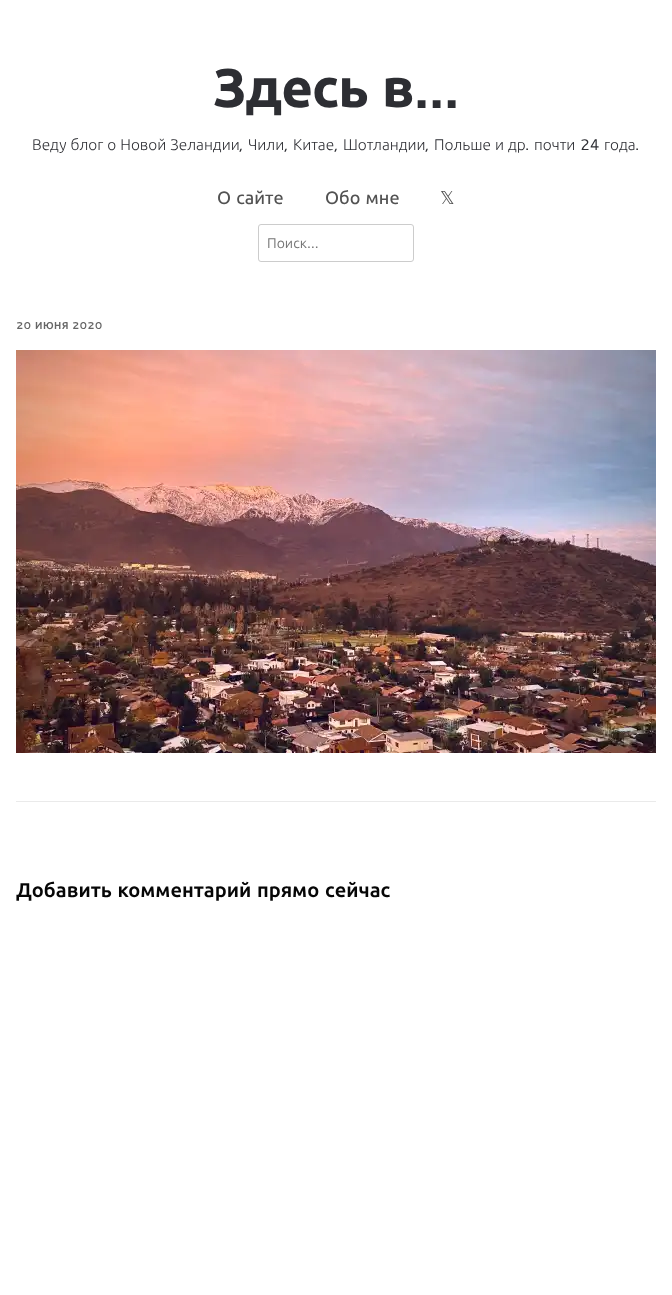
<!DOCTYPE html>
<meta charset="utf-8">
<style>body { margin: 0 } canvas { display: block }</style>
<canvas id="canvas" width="672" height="1295"></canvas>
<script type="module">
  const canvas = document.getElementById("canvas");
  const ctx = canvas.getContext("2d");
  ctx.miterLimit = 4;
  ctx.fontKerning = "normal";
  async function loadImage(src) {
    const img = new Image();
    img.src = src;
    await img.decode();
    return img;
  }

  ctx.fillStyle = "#ffffff";
  ctx.fillRect(0, 0, 672, 1295);
  ctx.letterSpacing = "-1px";
  ctx.wordSpacing = "2px";
  ctx.font = "800 54.5px Ubuntu";
  ctx.fillStyle = "#2d2e33";
  ctx.fillText("Здесь в", 213, 107);
  ctx.wordSpacing = "0px";
  ctx.font = "bold 54.5px Cantarell";
  ctx.fillText("…", 414, 107);
  ctx.letterSpacing = "0px";
  ctx.wordSpacing = "0.5px";
  ctx.font = "300 15.4px Ubuntu";
  ctx.fillText("Веду блог о Новой Зеландии", 32, 150);
  ctx.wordSpacing = "0px";
  ctx.font = "15.4px Cantarell";
  ctx.fillText(",", 239, 150);
  ctx.font = "300 15.4px Ubuntu";
  ctx.fillText("Чили", 248, 150);
  ctx.font = "15.4px Cantarell";
  ctx.fillText(",", 284, 150);
  ctx.font = "300 15.4px Ubuntu";
  ctx.fillText("Китае", 293, 150);
  ctx.font = "15.4px Cantarell";
  ctx.fillText(",", 334, 150);
  ctx.font = "300 15.4px Ubuntu";
  ctx.fillText("Шотландии", 343, 150);
  ctx.font = "15.4px Cantarell";
  ctx.fillText(",", 425, 150);
  ctx.wordSpacing = "0.5px";
  ctx.font = "300 15.4px Ubuntu";
  ctx.fillText("Польше и др", 434, 150);
  ctx.wordSpacing = "0px";
  ctx.font = "15.4px Cantarell";
  ctx.fillText(".", 525, 150);
  ctx.font = "300 15.4px Ubuntu";
  ctx.fillText("почти", 534, 150);
  ctx.font = "15.4px Cantarell";
  ctx.fillText("24", 580, 150);
  ctx.font = "300 15.4px Ubuntu";
  ctx.fillText("года", 604, 150);
  ctx.font = "15.4px Cantarell";
  ctx.fillText(".", 635, 150);
  ctx.wordSpacing = "1px";
  ctx.font = "500 18px Ubuntu";
  ctx.fillStyle = "#525252";
  ctx.fillText("О сайте", 217, 204);
  ctx.fillText("Обо мне", 325, 204);
  ctx.wordSpacing = "0px";
  ctx.font = "18px DejaVu Sans";
  ctx.fillText("𝕏", 440, 204);
  ctx.beginPath();
  ctx.roundRect(258.5, 224.5, 155, 37, 2.5);
  ctx.strokeStyle = "#cccccc";
  ctx.stroke();
  ctx.font = "14px Ubuntu";
  ctx.fillStyle = "#757575";
  ctx.fillText("Поиск", 267, 248);
  ctx.font = "14px Cantarell";
  ctx.fillText("…", 307, 248);
  ctx.letterSpacing = "0.5px";
  ctx.font = "bold 10px Cantarell";
  ctx.fillStyle = "#666666";
  ctx.fillText("20", 16, 329);
  ctx.font = "bold 10px Ubuntu";
  ctx.fillText("ИЮНЯ", 35, 329);
  ctx.font = "bold 10px Cantarell";
  ctx.fillText("2020", 72, 329);
  ctx.drawImage(await loadImage("img1.png"), 16, 350, 640, 403);
  ctx.fillStyle = "#eaeaea";
  ctx.fillRect(16, 801, 640, 1);
  ctx.letterSpacing = "0px";
  ctx.wordSpacing = "1px";
  ctx.font = "bold 20px Ubuntu";
  ctx.fillStyle = "#060606";
  ctx.fillText("Добавить комментарий прямо сейчас", 16, 897);
</script>
